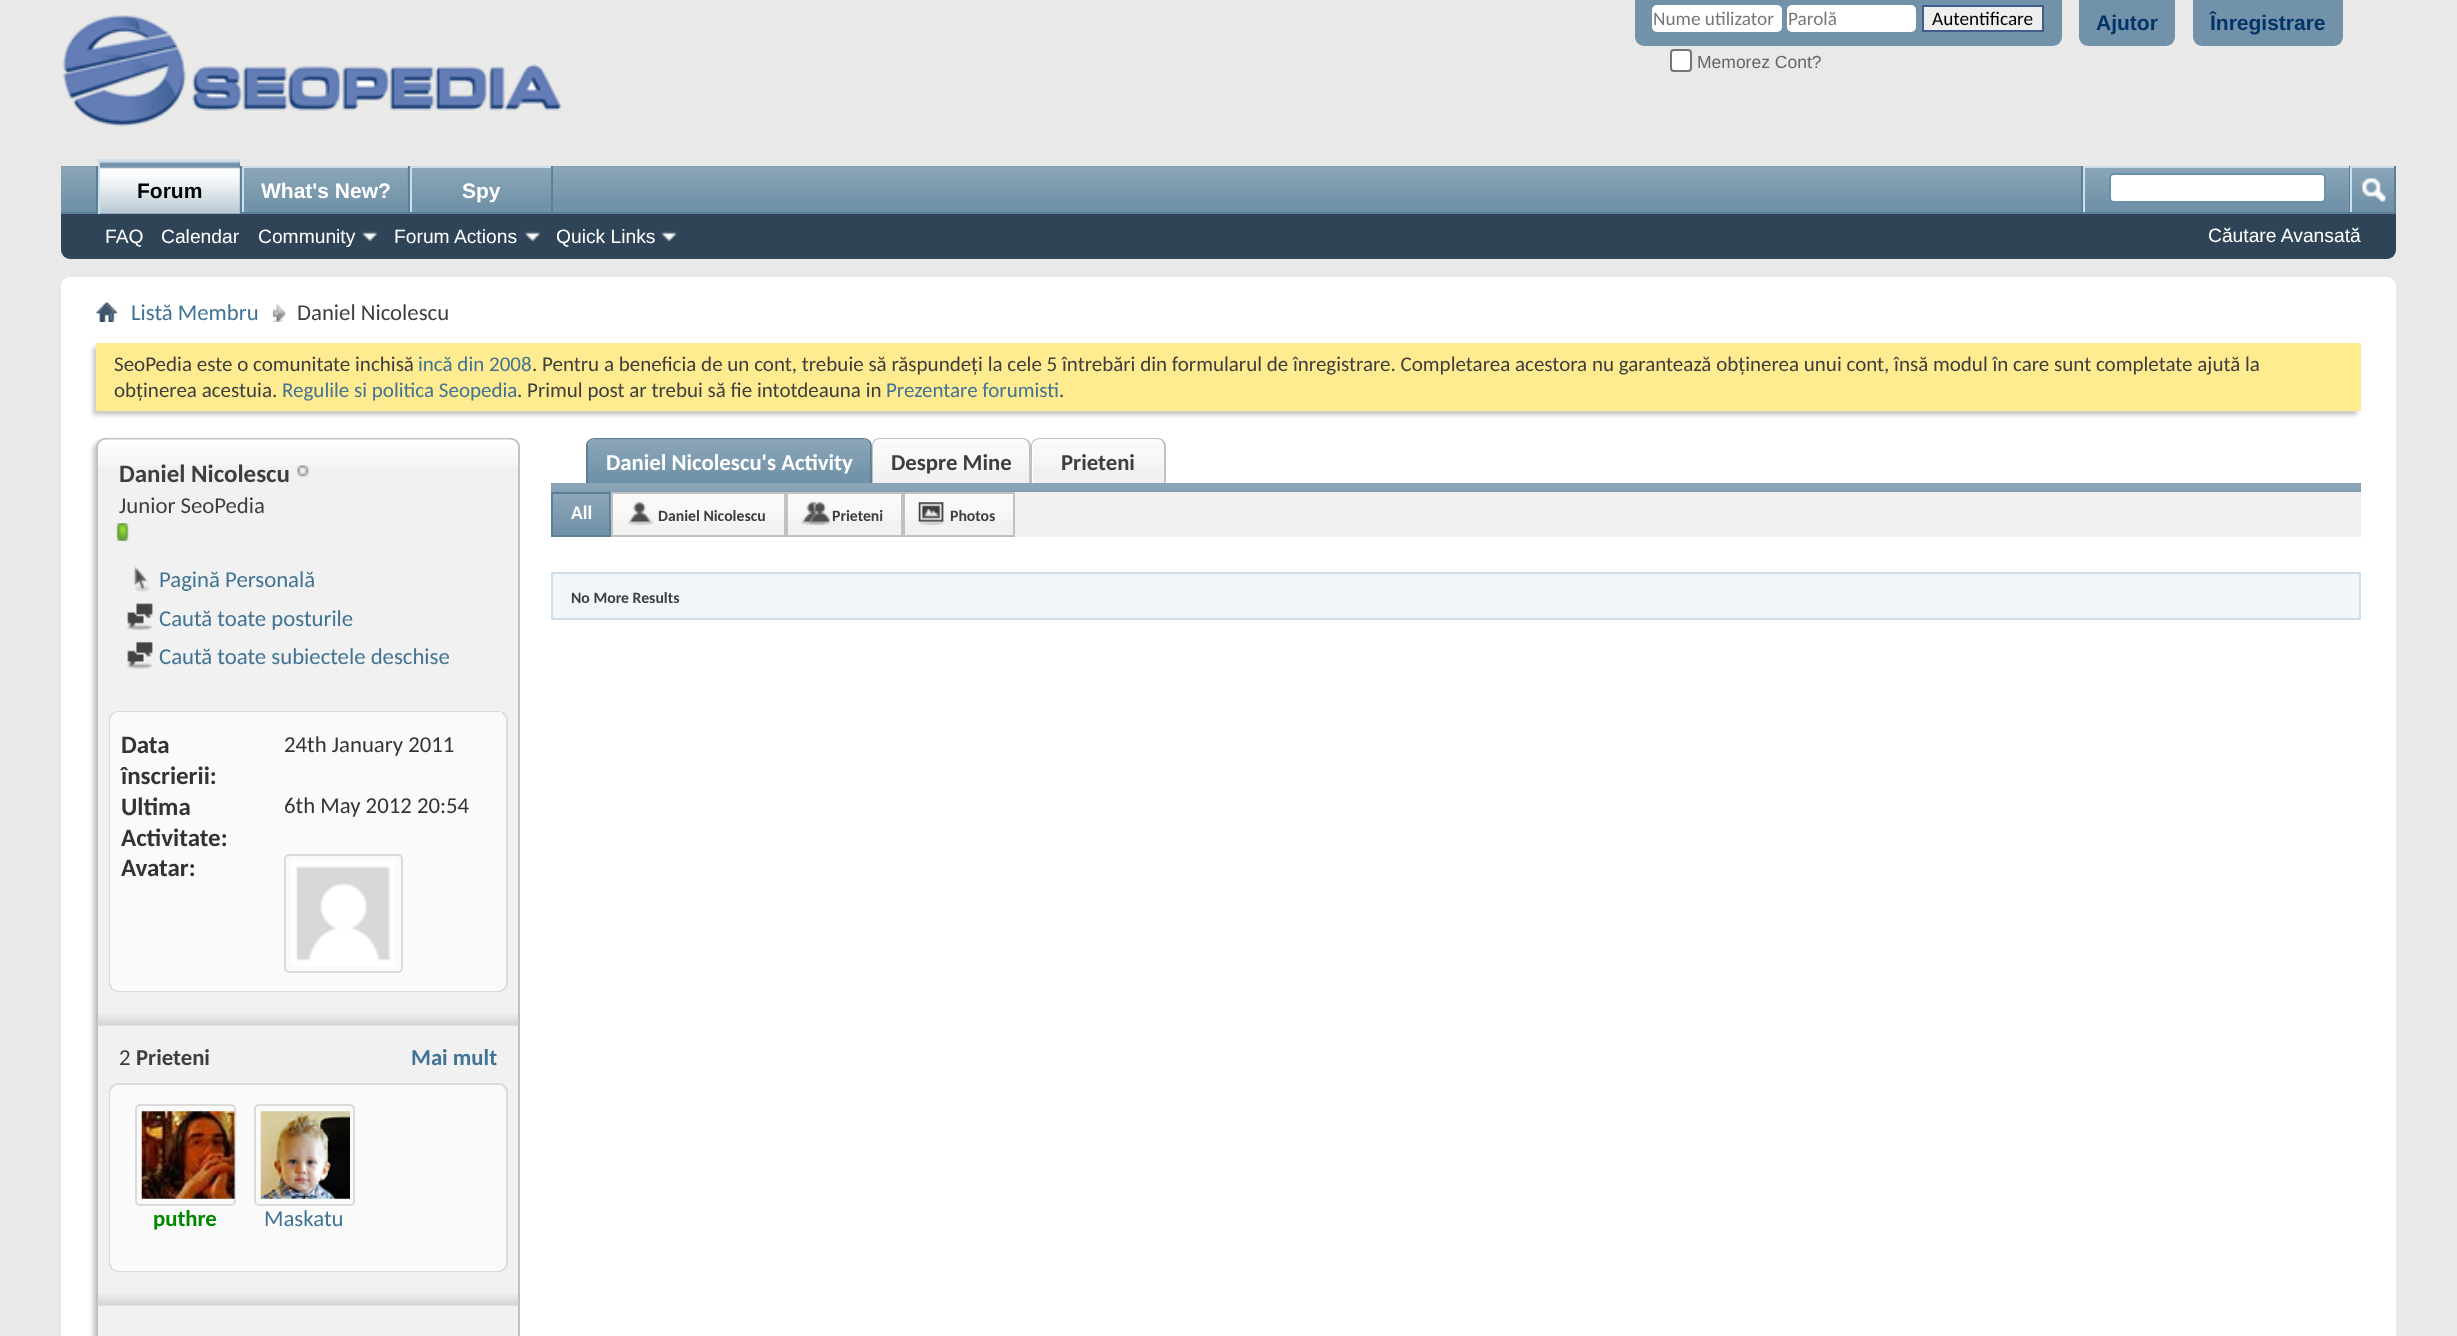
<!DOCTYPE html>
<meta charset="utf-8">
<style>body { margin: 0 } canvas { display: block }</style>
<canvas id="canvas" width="2457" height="1336"></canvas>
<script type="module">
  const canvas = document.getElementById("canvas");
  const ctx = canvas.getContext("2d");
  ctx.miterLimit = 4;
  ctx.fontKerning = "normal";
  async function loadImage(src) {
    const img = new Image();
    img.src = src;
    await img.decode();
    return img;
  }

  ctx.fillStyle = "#e9e9e9";
  ctx.fillRect(0, 0, 2457, 1336);
  ctx.drawImage(await loadImage("img1.png"), 62, 15, 500, 112);
  ctx.fillStyle = "#7192a8";
  ctx.beginPath();
  ctx.roundRect(1635, 0, 427, 46, [0, 0, 9, 9]);
  ctx.fill();
  ctx.fillStyle = "#ffffff";
  ctx.beginPath();
  ctx.roundRect(1652, 5, 130, 27, 5);
  ctx.fill();
  ctx.font = "19.25px Carlito";
  ctx.fillStyle = "#777777";
  ctx.fillText("Nume utilizator", 1653, 25);
  ctx.fillStyle = "#ffffff";
  ctx.beginPath();
  ctx.roundRect(1787, 5, 129, 27, 5);
  ctx.fill();
  ctx.fillStyle = "#777777";
  ctx.fillText("Parolă", 1788, 25);
  ctx.fillStyle = "#efefef";
  ctx.beginPath();
  ctx.rect(1923, 6, 120, 25);
  ctx.fill();
  ctx.strokeStyle = "#415d8d";
  ctx.lineWidth = 2;
  ctx.stroke();
  ctx.fillStyle = "#000000";
  ctx.fillText("Autentificare", 1932, 25);
  ctx.fillStyle = "#ffffff";
  ctx.beginPath();
  ctx.roundRect(1671, 50, 20, 21, 3);
  ctx.fill();
  ctx.strokeStyle = "#767676";
  ctx.stroke();
  ctx.font = "17.5px Liberation Sans";
  ctx.fillStyle = "#666666";
  ctx.fillText("Memorez Cont?", 1697, 68);
  ctx.fillStyle = "#7192a8";
  ctx.beginPath();
  ctx.roundRect(2079, 0, 96, 46, [0, 0, 9, 9]);
  ctx.fill();
  ctx.font = "bold 21px Liberation Sans";
  ctx.fillStyle = "#003366";
  ctx.fillText("Ajutor", 2096, 30);
  ctx.fillStyle = "#7192a8";
  ctx.beginPath();
  ctx.roundRect(2193, 0, 150, 46, [0, 0, 9, 9]);
  ctx.fill();
  ctx.fillStyle = "#003366";
  ctx.fillText("Înregistrare", 2210, 30);
  ctx.fillStyle = "#2f4456";
  ctx.beginPath();
  ctx.roundRect(61, 166, 2335, 93, [0, 0, 9, 9]);
  ctx.fill();
  ctx.fillStyle = "#7192a8";
  ctx.fillRect(61, 166, 2333, 46);
  ctx.drawImage(await loadImage("img2.png"), 61, 166, 2333, 34);
  ctx.fillStyle = "#5a7f97";
  ctx.fillRect(408, 166, 2, 48);
  ctx.fillStyle = "#7192a8";
  ctx.fillRect(244, 168, 164, 32);
  ctx.fillStyle = "#5a7f97";
  ctx.fillRect(240, 166, 2, 46);
  ctx.drawImage(await loadImage("img3.png"), 241, 168, 167, 34);
  ctx.fillStyle = "#cedfeb";
  ctx.fillRect(242, 166, 166, 2);
  ctx.fillRect(242, 166, 2, 48);
  ctx.fillStyle = "#ffffff";
  ctx.fillText("What's New?", 261, 198);
  ctx.fillStyle = "#5a7f97";
  ctx.fillRect(96, 166, 2, 46);
  ctx.fillRect(551, 166, 2, 48);
  ctx.fillStyle = "#7192a8";
  ctx.fillRect(412, 168, 139, 32);
  ctx.drawImage(await loadImage("img8.png"), 409, 168, 143, 34);
  ctx.fillStyle = "#cedfeb";
  ctx.fillRect(410, 166, 141, 2);
  ctx.fillRect(410, 166, 2, 48);
  ctx.fillStyle = "#5a7f97";
  ctx.fillRect(61, 212, 2335, 2);
  ctx.fillStyle = "#7192a8";
  ctx.fillRect(100, 161, 140, 53);
  ctx.drawImage(await loadImage("img4.png"), 100, 161, 140, 53);
  ctx.fillStyle = "#cedfeb";
  ctx.fillRect(98, 159, 142, 2);
  ctx.fillRect(98, 159, 2, 55);
  ctx.fillStyle = "#000000";
  ctx.fillText("Forum", 137, 198);
  ctx.font = "19.25px Liberation Sans";
  ctx.fillStyle = "#ffffff";
  ctx.fillText("FAQ", 105, 243);
  ctx.fillText("Calendar", 161, 243);
  ctx.fillText("Community", 258, 243);
  ctx.drawImage(await loadImage("img5.png"), 362, 231, 16, 11);
  ctx.fillText("Forum Actions", 394, 243);
  ctx.drawImage(await loadImage("img6.png"), 524, 231, 17, 11);
  ctx.fillText("Quick Links", 556, 243);
  ctx.drawImage(await loadImage("img7.png"), 661, 231, 17, 11);
  ctx.font = "bold 21px Liberation Sans";
  ctx.fillText("Spy", 462, 198);
  ctx.fillStyle = "#5a7f97";
  ctx.fillRect(2081, 166, 2, 46);
  ctx.fillStyle = "#cedfeb";
  ctx.fillRect(2083, 166, 266, 2);
  ctx.fillRect(2083, 166, 2, 46);
  ctx.fillStyle = "#ffffff";
  ctx.beginPath();
  ctx.roundRect(2110, 174, 215, 28, 4);
  ctx.fill();
  ctx.strokeStyle = "#6b91ab";
  ctx.stroke();
  ctx.fillStyle = "#5a7f97";
  ctx.fillRect(2394, 166, 2, 46);
  ctx.fillRect(2349, 166, 1, 46);
  ctx.fillStyle = "#cedfeb";
  ctx.fillRect(2350, 166, 44, 2);
  ctx.fillRect(2350, 166, 2, 46);
  ctx.drawImage(await loadImage("img9.png"), 2362, 178, 24, 25);
  ctx.font = "19.25px Liberation Sans";
  ctx.fillStyle = "#ffffff";
  ctx.fillText("Căutare Avansată", 2208, 242);
  ctx.beginPath();
  ctx.roundRect(61, 277, 2335, 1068, 9);
  ctx.fill();
  ctx.drawImage(await loadImage("img10.png"), 96, 302, 22, 20);
  ctx.drawImage(await loadImage("img11.png"), 273, 304, 13, 18);
  ctx.font = "22.75px Carlito";
  ctx.fillStyle = "#417394";
  ctx.fillText("Listă Membru", 131, 320);
  ctx.fillStyle = "#3e3e3e";
  ctx.fillText("Daniel Nicolescu", 297, 320);
  ctx.fillStyle = "#c8c8c8";
  ctx.filter = "blur(2px)";
  ctx.beginPath();
  ctx.rect(93, 347, 2264, 68);
  ctx.fill();
  ctx.filter = "none";
  ctx.fillStyle = "#ffeb90";
  ctx.fillRect(96, 343, 2265, 68);
  ctx.font = "21px Carlito";
  ctx.fillStyle = "#3e3e3e";
  ctx.fillText("SeoPedia este o comunitate inchisă", 114, 371);
  ctx.fillStyle = "#417394";
  ctx.fillText("incă din 2008", 418, 371);
  ctx.fillStyle = "#3e3e3e";
  ctx.fillText(". Pentru a beneficia de un cont, trebuie să răspundeți la cele 5 întrebări din formularul de înregistrare. Completarea acestora nu garantează obținerea unui cont, însă modul în care sunt completate ajută la", 532, 371);
  ctx.fillText("obținerea acestuia.", 114, 397);
  ctx.fillStyle = "#417394";
  ctx.fillText("Regulile si politica Seopedia", 282, 397);
  ctx.fillStyle = "#3e3e3e";
  ctx.fillText(". Primul post ar trebui să fie intotdeauna in", 517, 397);
  ctx.fillStyle = "#417394";
  ctx.fillText("Prezentare forumisti", 886, 397);
  ctx.fillStyle = "#3e3e3e";
  ctx.fillText(".", 1059, 397);
  ctx.fillStyle = "#c8c8c8";
  ctx.filter = "blur(2px)";
  ctx.beginPath();
  ctx.roundRect(93, 441, 423, 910, 9);
  ctx.fill();
  ctx.filter = "none";
  ctx.fillStyle = "#f1f1f1";
  ctx.beginPath();
  ctx.roundRect(96, 438, 424, 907, 9);
  ctx.fill();
  ctx.drawImage(await loadImage("img12.png"), 96, 439, 424, 27);
  ctx.beginPath();
  ctx.roundRect(97, 439, 422, 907, 8);
  ctx.strokeStyle = "#c1c1c1";
  ctx.stroke();
  ctx.drawImage(await loadImage("img13.png"), 98, 439, 420, 8);
  ctx.font = "bold 25px Carlito";
  ctx.fillStyle = "#3e3e3e";
  ctx.fillText("Daniel Nicolescu", 119, 482);
  ctx.drawImage(await loadImage("img14.png"), 297, 465, 12, 12);
  ctx.font = "22.75px Carlito";
  ctx.fillText("Junior SeoPedia", 119, 513);
  ctx.drawImage(await loadImage("img15.png"), 115, 523, 14, 18);
  ctx.drawImage(await loadImage("img16.png"), 134, 566, 16, 26);
  ctx.fillStyle = "#417394";
  ctx.fillText("Pagină Personală", 159, 587);
  ctx.drawImage(await loadImage("img17.png"), 126, 603, 27, 27);
  ctx.fillText("Caută toate posturile", 159, 626);
  ctx.drawImage(await loadImage("img18.png"), 127, 641, 26, 28);
  ctx.fillText("Caută toate subiectele deschise", 159, 664);
  ctx.beginPath();
  ctx.roundRect(110, 712, 397, 279, 8);
  ctx.strokeStyle = "#dadada";
  ctx.stroke();
  ctx.fillStyle = "#fafafa";
  ctx.beginPath();
  ctx.roundRect(110, 712, 396, 279, 9);
  ctx.fill();
  ctx.fillRect(116, 712, 386, 2);
  ctx.font = "bold 25px Carlito";
  ctx.fillStyle = "#333333";
  ctx.fillText("Data", 121, 753);
  ctx.fillText("înscrierii:", 121, 784);
  ctx.font = "22.75px Carlito";
  ctx.fillText("24th January 2011", 284, 752);
  ctx.font = "bold 25px Carlito";
  ctx.fillText("Ultima", 121, 815);
  ctx.fillText("Activitate:", 121, 846);
  ctx.font = "22.75px Carlito";
  ctx.fillText("6th May 2012 20:54", 284, 813);
  ctx.font = "bold 25px Carlito";
  ctx.fillText("Avatar:", 121, 876);
  ctx.beginPath();
  ctx.roundRect(285, 855, 117, 117, 4);
  ctx.stroke();
  ctx.drawImage(await loadImage("img19.png"), 291, 861, 104, 105);
  ctx.drawImage(await loadImage("img20.png"), 98, 1014, 420, 12);
  ctx.font = "22.75px Carlito";
  ctx.fillStyle = "#3e3e3e";
  ctx.fillText("2", 119, 1065);
  ctx.font = "bold 22.75px Carlito";
  ctx.fillText("Prieteni", 136, 1065);
  ctx.fillStyle = "#417394";
  ctx.fillText("Mai mult", 411, 1065);
  ctx.beginPath();
  ctx.roundRect(110, 1084, 397, 187, 8);
  ctx.stroke();
  ctx.fillStyle = "#fafafa";
  ctx.beginPath();
  ctx.roundRect(110, 1085, 396, 186, 9);
  ctx.fill();
  ctx.fillRect(116, 1085, 386, 1);
  ctx.beginPath();
  ctx.roundRect(136, 1105, 99, 100, 4);
  ctx.stroke();
  ctx.drawImage(await loadImage("img21.png"), 141, 1111, 94, 88);
  ctx.fillStyle = "#008800";
  ctx.fillText("puthre", 153, 1226);
  ctx.beginPath();
  ctx.roundRect(255, 1105, 99, 100, 4);
  ctx.stroke();
  ctx.drawImage(await loadImage("img22.png"), 260, 1111, 90, 88);
  ctx.font = "22.75px Carlito";
  ctx.fillStyle = "#417394";
  ctx.fillText("Maskatu", 264, 1226);
  ctx.drawImage(await loadImage("img20.png"), 98, 1294, 420, 12);
  ctx.fillStyle = "#7192a8";
  ctx.beginPath();
  ctx.roundRect(588, 439, 282, 44, [7, 7, 0, 0]);
  ctx.fill();
  ctx.drawImage(await loadImage("img23.png"), 588, 439, 282, 34);
  ctx.fillStyle = "#5a7f97";
  ctx.beginPath();
  ctx.moveTo(595, 438);
  ctx.lineTo(863, 438);
  ctx.bezierCurveTo(868, 438, 872, 441, 872, 446);
  ctx.lineTo(872, 483);
  ctx.lineTo(586, 483);
  ctx.lineTo(586, 446);
  ctx.bezierCurveTo(586, 441, 590, 438, 595, 438);
  ctx.closePath();
  ctx.moveTo(595, 439);
  ctx.lineTo(863, 439);
  ctx.bezierCurveTo(867, 439, 870, 442, 870, 446);
  ctx.lineTo(870, 483);
  ctx.lineTo(588, 483);
  ctx.lineTo(588, 446);
  ctx.bezierCurveTo(588, 442, 591, 439, 595, 439);
  ctx.closePath();
  ctx.fill("evenodd");
  ctx.font = "bold 22.75px Carlito";
  ctx.fillStyle = "#ffffff";
  ctx.fillText("Daniel Nicolescu's Activity", 606, 470);
  ctx.fillStyle = "#f1f1f1";
  ctx.beginPath();
  ctx.roundRect(873, 439, 156, 44, [7, 7, 0, 0]);
  ctx.fill();
  ctx.drawImage(await loadImage("img24.png"), 871, 439, 158, 35);
  ctx.fillStyle = "#c1c1c1";
  ctx.beginPath();
  ctx.moveTo(880, 438);
  ctx.lineTo(1022, 438);
  ctx.bezierCurveTo(1027, 438, 1031, 441, 1031, 446);
  ctx.lineTo(1031, 483);
  ctx.lineTo(872, 483);
  ctx.lineTo(872, 446);
  ctx.bezierCurveTo(872, 441, 875, 438, 880, 438);
  ctx.closePath();
  ctx.moveTo(880, 439);
  ctx.lineTo(1022, 439);
  ctx.bezierCurveTo(1026, 439, 1029, 442, 1029, 446);
  ctx.lineTo(1029, 483);
  ctx.lineTo(873, 483);
  ctx.lineTo(873, 446);
  ctx.bezierCurveTo(873, 442, 876, 439, 880, 439);
  ctx.closePath();
  ctx.fill("evenodd");
  ctx.fillStyle = "#3e3e3e";
  ctx.fillText("Despre Mine", 891, 470);
  ctx.fillStyle = "#f1f1f1";
  ctx.beginPath();
  ctx.roundRect(1033, 439, 131, 44, [7, 7, 0, 0]);
  ctx.fill();
  ctx.drawImage(await loadImage("img25.png"), 1033, 439, 131, 27);
  ctx.fillStyle = "#c1c1c1";
  ctx.beginPath();
  ctx.moveTo(1040, 438);
  ctx.lineTo(1157, 438);
  ctx.bezierCurveTo(1162, 438, 1166, 441, 1166, 446);
  ctx.lineTo(1166, 483);
  ctx.lineTo(1031, 483);
  ctx.lineTo(1031, 446);
  ctx.bezierCurveTo(1031, 441, 1035, 438, 1040, 438);
  ctx.closePath();
  ctx.moveTo(1040, 439);
  ctx.lineTo(1157, 439);
  ctx.bezierCurveTo(1161, 439, 1164, 442, 1164, 446);
  ctx.lineTo(1164, 483);
  ctx.lineTo(1032, 483);
  ctx.lineTo(1032, 446);
  ctx.bezierCurveTo(1032, 442, 1036, 439, 1040, 439);
  ctx.closePath();
  ctx.fill("evenodd");
  ctx.fillStyle = "#3e3e3e";
  ctx.fillText("Prieteni", 1061, 470);
  ctx.fillStyle = "#7192a8";
  ctx.fillRect(551, 483, 1810, 9);
  ctx.drawImage(await loadImage("img26.png"), 551, 483, 1810, 9);
  ctx.fillStyle = "#f1f1f1";
  ctx.fillRect(613, 492, 1748, 45);
  ctx.fillStyle = "#7192a8";
  ctx.fillRect(553, 494, 56, 41);
  ctx.drawImage(await loadImage("img27.png"), 553, 494, 56, 34);
  ctx.strokeStyle = "#5a7f97";
  ctx.strokeRect(552, 493, 58, 43);
  ctx.font = "bold 19.25px Carlito";
  ctx.fillStyle = "#ffffff";
  ctx.fillText("All", 571, 519);
  ctx.drawImage(await loadImage("img28.png"), 610, 493, 174, 35);
  ctx.strokeStyle = "#c1c1c1";
  ctx.strokeRect(612, 493, 173, 43);
  ctx.drawImage(await loadImage("img29.png"), 628, 501, 26, 24);
  ctx.font = "bold 15.75px Carlito";
  ctx.fillStyle = "#3e3e3e";
  ctx.fillText("Daniel Nicolescu", 658, 521);
  ctx.drawImage(await loadImage("img30.png"), 785, 493, 116, 28);
  ctx.strokeRect(787, 493, 115, 43);
  ctx.drawImage(await loadImage("img31.png"), 801, 501, 29, 24);
  ctx.fillText("Prieteni", 832, 521);
  ctx.drawImage(await loadImage("img32.png"), 905, 494, 108, 26);
  ctx.strokeRect(904, 493, 110, 43);
  ctx.drawImage(await loadImage("img33.png"), 918, 502, 27, 23);
  ctx.fillText("Photos", 950, 521);
  ctx.fillStyle = "#f2f6f8";
  ctx.beginPath();
  ctx.rect(552, 573, 1808, 46);
  ctx.fill();
  ctx.strokeStyle = "#cedfeb";
  ctx.stroke();
  ctx.fillStyle = "#3e3e3e";
  ctx.fillText("No More Results", 571, 603);
</script>
